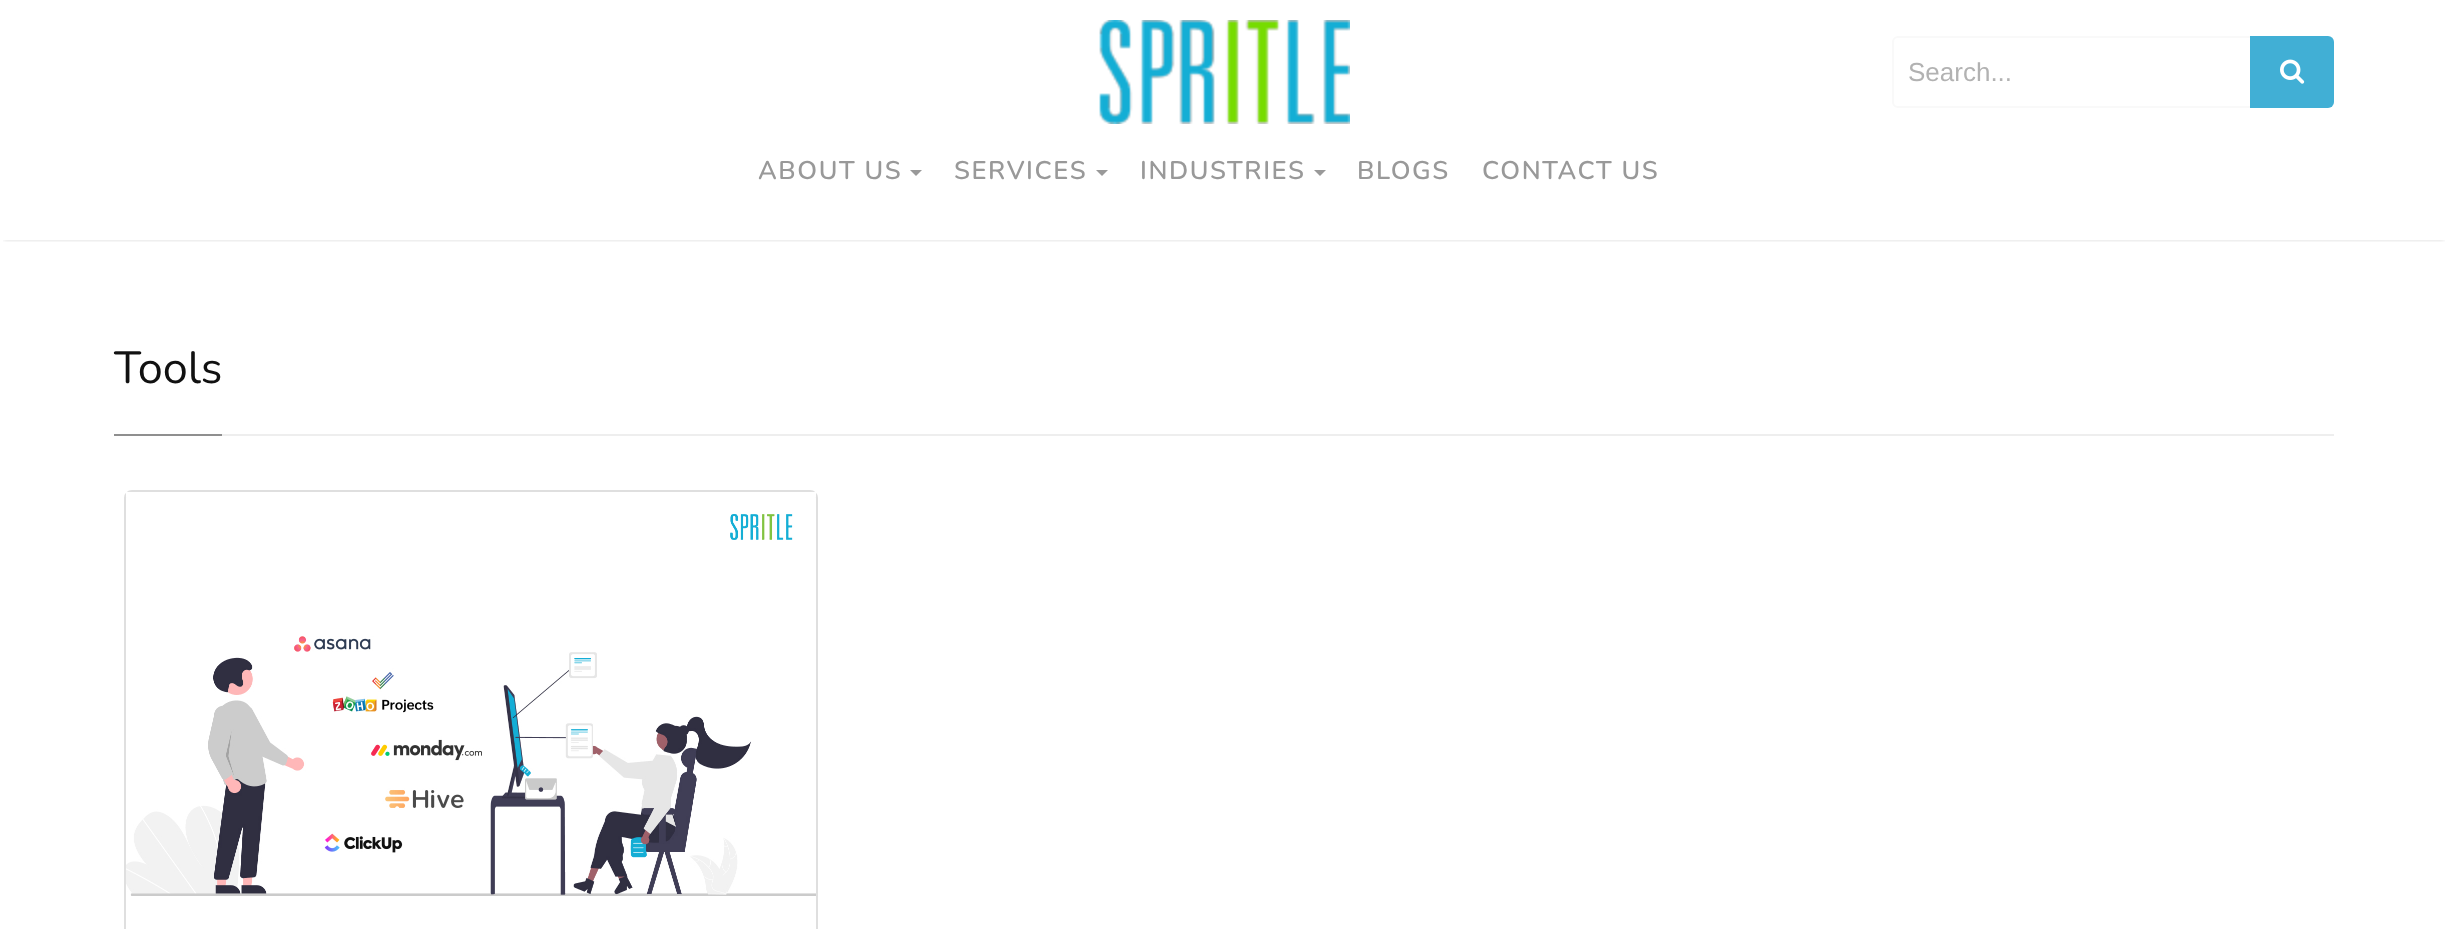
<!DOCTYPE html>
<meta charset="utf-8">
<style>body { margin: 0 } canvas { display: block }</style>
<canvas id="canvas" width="2447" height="929"></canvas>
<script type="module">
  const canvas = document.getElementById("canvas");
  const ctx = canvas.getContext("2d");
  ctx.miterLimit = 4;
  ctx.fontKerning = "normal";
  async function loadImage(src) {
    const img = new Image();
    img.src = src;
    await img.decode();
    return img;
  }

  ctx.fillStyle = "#ffffff";
  ctx.fillRect(0, 0, 2447, 929);
  ctx.save();
  ctx.beginPath();
  ctx.rect(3, 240, 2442, 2);
  ctx.clip();
  ctx.fillStyle = "rgba(0, 0, 0, 0.15)";
  ctx.filter = "blur(2px)";
  ctx.beginPath();
  ctx.rect(4, 8, 2440, 232);
  ctx.fill();
  ctx.filter = "none";
  ctx.restore();
  ctx.drawImage(await loadImage("img1.png"), 1099, 20, 251, 104);
  ctx.beginPath();
  ctx.roundRect(1893, 37, 358, 70, [5, 0, 0, 5]);
  ctx.strokeStyle = "#f9f9f9";
  ctx.lineWidth = 2;
  ctx.stroke();
  ctx.font = "26px Liberation Sans";
  ctx.fillStyle = "#b2b2b2";
  ctx.fillText("Search...", 1908, 81);
  ctx.fillStyle = "#41afd5";
  ctx.beginPath();
  ctx.roundRect(2250, 36, 84, 72, [0, 6, 6, 0]);
  ctx.fill();
  ctx.drawImage(await loadImage("img2.png"), 2280, 59, 25, 25);
  ctx.letterSpacing = "1.6px";
  ctx.font = "600 25.5px Nunito";
  ctx.fillStyle = "#999999";
  ctx.fillText("ABOUT US", 758, 179);
  ctx.beginPath();
  ctx.moveTo(910, 170);
  ctx.lineTo(922, 170);
  ctx.lineTo(916, 176);
  ctx.closePath();
  ctx.fill();
  ctx.fillText("SERVICES", 954, 179);
  ctx.beginPath();
  ctx.moveTo(1096, 170);
  ctx.lineTo(1108, 170);
  ctx.lineTo(1102, 176);
  ctx.closePath();
  ctx.fill();
  ctx.fillText("INDUSTRIES", 1140, 179);
  ctx.beginPath();
  ctx.moveTo(1314, 170);
  ctx.lineTo(1326, 170);
  ctx.lineTo(1320, 176);
  ctx.closePath();
  ctx.fill();
  ctx.fillText("BLOGS", 1357, 179);
  ctx.fillText("CONTACT US", 1482, 179);
  ctx.fillStyle = "#eeeeee";
  ctx.fillRect(222, 434, 2112, 2);
  ctx.fillStyle = "#8f8f8f";
  ctx.fillRect(114, 434, 108, 2);
  ctx.letterSpacing = "0px";
  ctx.font = "200 45px Nunito";
  ctx.fillStyle = "#111111";
  ctx.fillText("Tools", 114, 383);
  ctx.beginPath();
  ctx.roundRect(125, 491, 692, 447, 7);
  ctx.strokeStyle = "#dfdfdf";
  ctx.stroke();
  ctx.fillStyle = "#ffffff";
  ctx.fillRect(126, 492, 690, 5);
  ctx.drawImage(await loadImage("img3.png"), 126, 514, 690, 382);
</script>
